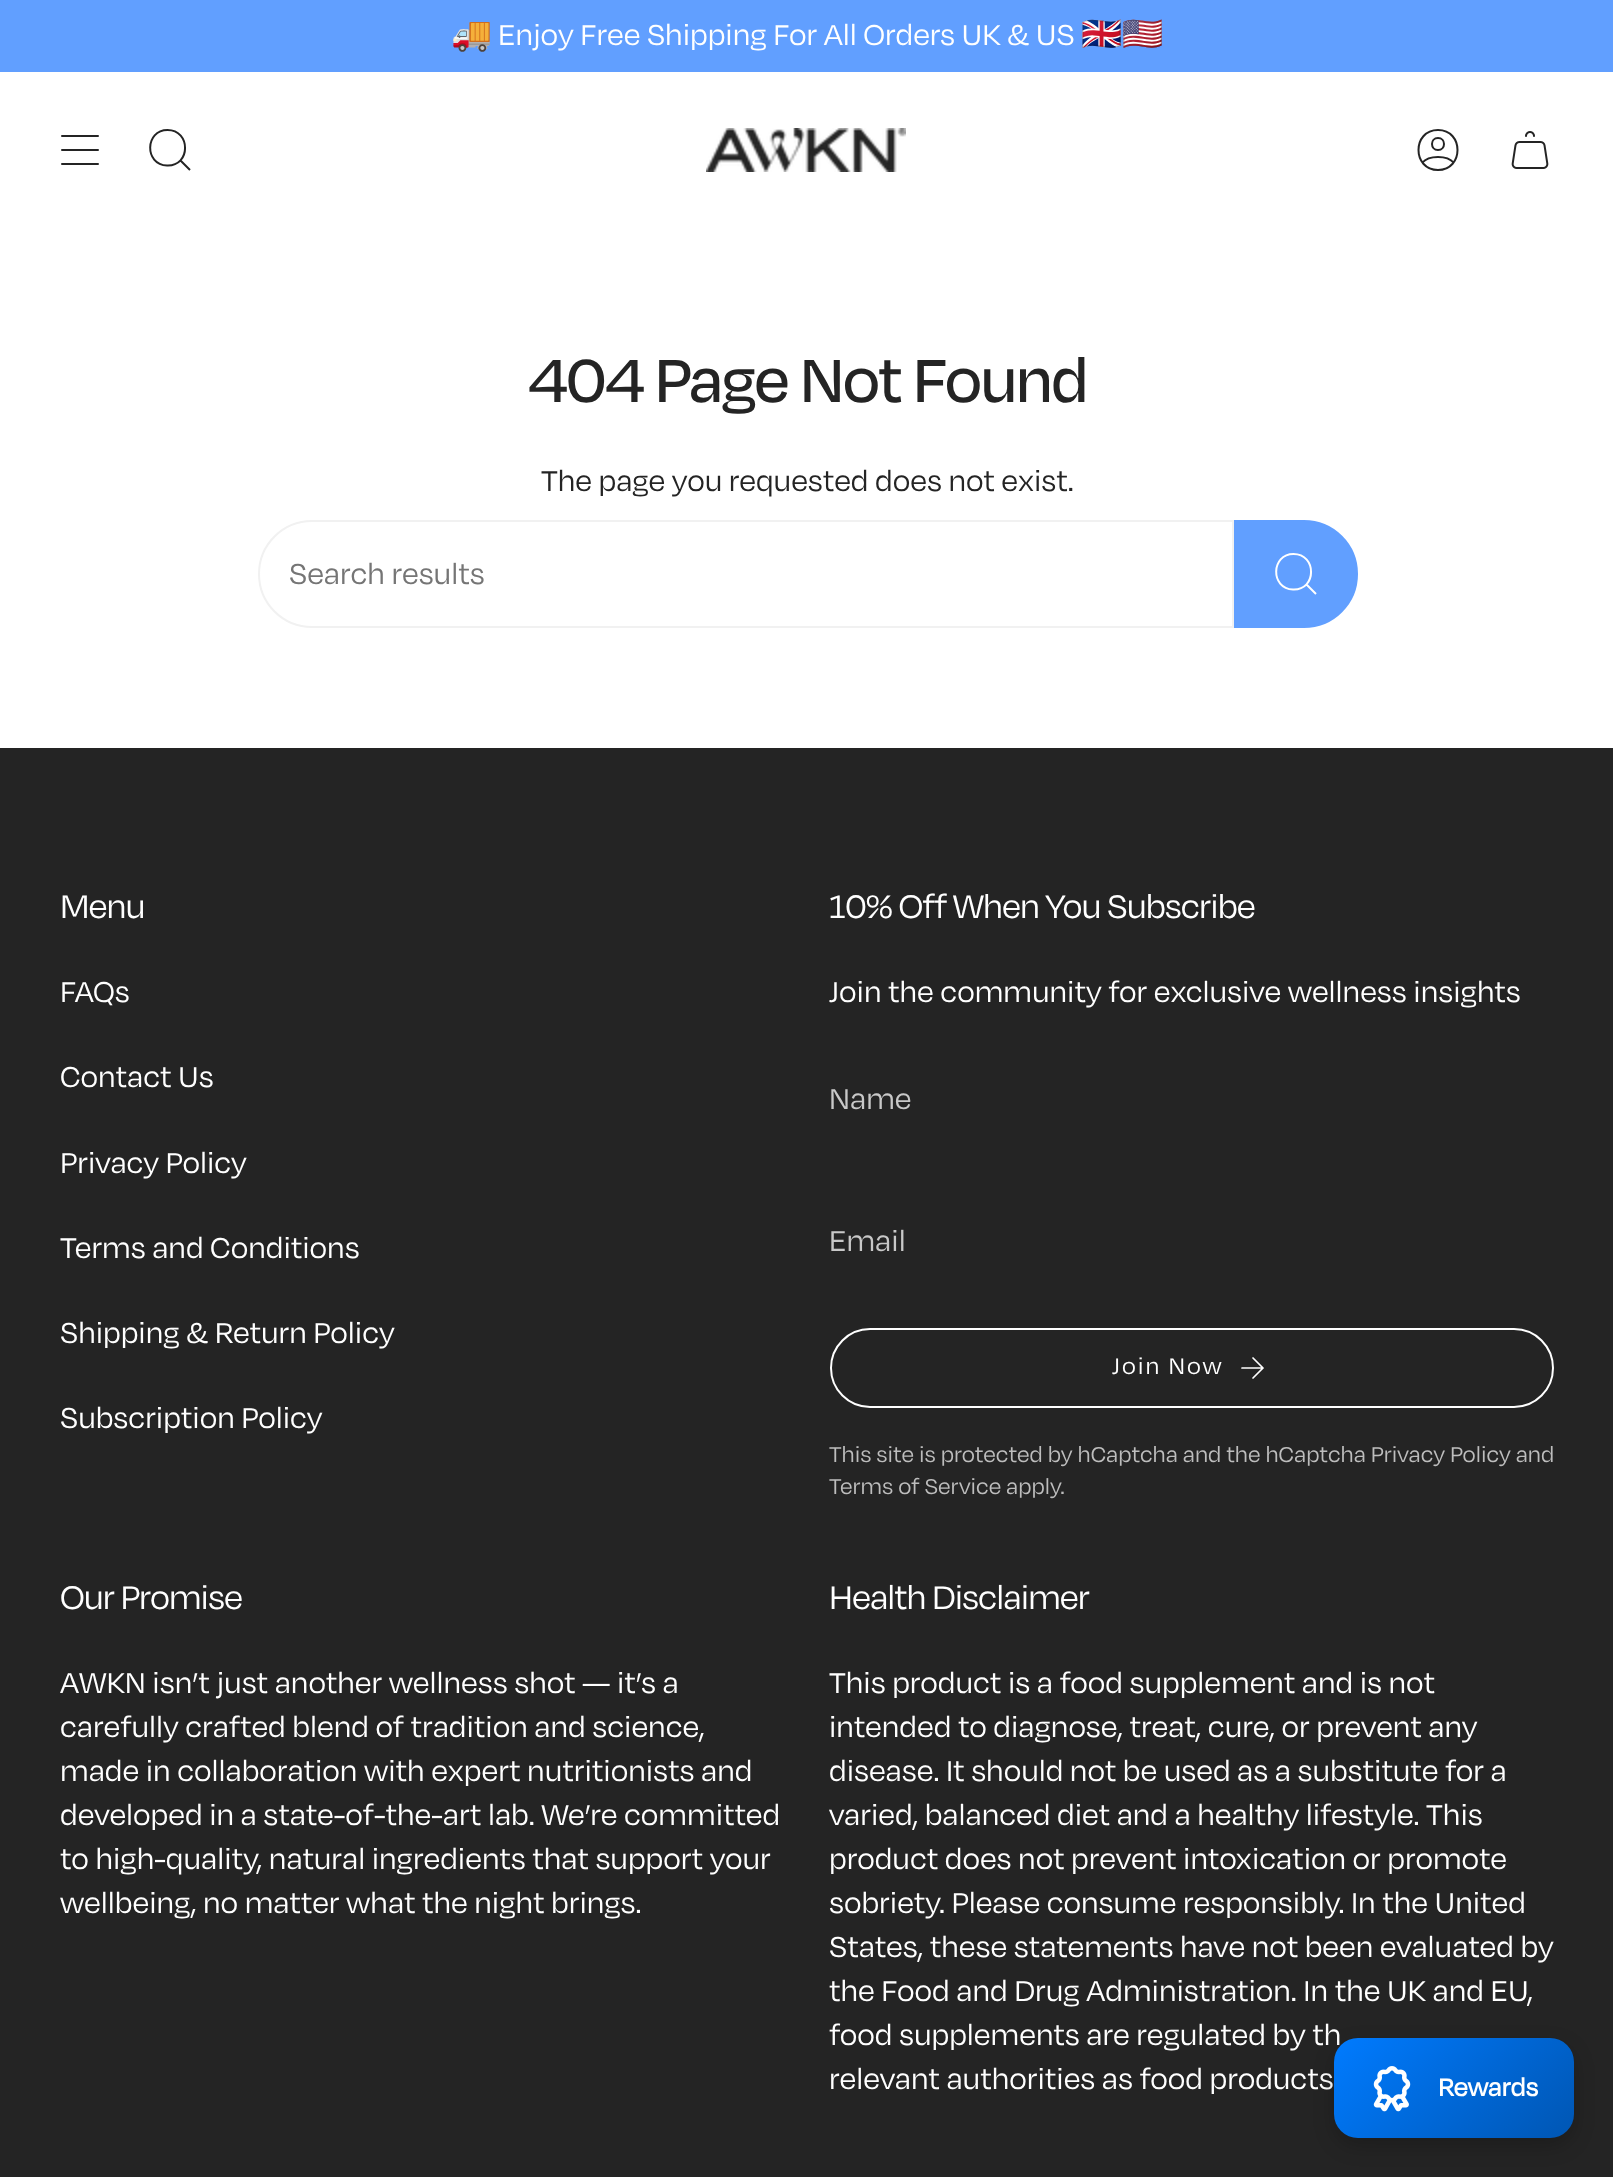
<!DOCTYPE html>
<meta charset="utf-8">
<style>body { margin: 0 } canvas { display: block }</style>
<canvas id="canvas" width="1613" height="2177"></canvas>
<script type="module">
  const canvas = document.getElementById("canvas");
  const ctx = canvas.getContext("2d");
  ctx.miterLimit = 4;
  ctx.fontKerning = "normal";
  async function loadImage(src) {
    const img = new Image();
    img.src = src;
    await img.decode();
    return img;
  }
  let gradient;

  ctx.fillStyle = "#ffffff";
  ctx.fillRect(0, 0, 1613, 2177);
  ctx.fillStyle = "#619fff";
  ctx.fillRect(0, 0, 1613, 72);
  ctx.font = "33px Noto Color Emoji";
  ctx.fillStyle = "#ffffff";
  ctx.fillText("🚚", 451, 45);
  ctx.font = "33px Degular";
  ctx.fillText("Enjoy Free Shipping For All Orders UK & US", 498, 45);
  ctx.font = "33px Noto Color Emoji";
  ctx.fillText("🇬🇧🇺🇸", 1081, 45);
  ctx.beginPath();
  ctx.moveTo(62, 136);
  ctx.lineTo(98, 136);
  ctx.moveTo(62, 150);
  ctx.lineTo(98, 150);
  ctx.moveTo(62, 164);
  ctx.lineTo(98, 164);
  ctx.strokeStyle = "#242424";
  ctx.lineWidth = 2;
  ctx.lineCap = "round";
  ctx.lineJoin = "round";
  ctx.stroke();
  ctx.beginPath();
  ctx.moveTo(167.5, 130);
  ctx.bezierCurveTo(191, 130, 191, 166.5, 167, 165.5);
  ctx.bezierCurveTo(144, 164.5, 145, 130, 167.5, 130);
  ctx.closePath();
  ctx.moveTo(180, 160);
  ctx.lineTo(190, 170);
  ctx.lineCap = "butt";
  ctx.lineJoin = "miter";
  ctx.stroke();
  ctx.drawImage(await loadImage("img1.png"), 706, 128, 200, 44);
  ctx.beginPath();
  ctx.moveTo(1438, 130);
  ctx.bezierCurveTo(1412, 130, 1412, 170, 1438, 170);
  ctx.bezierCurveTo(1464, 170, 1464, 130, 1438, 130);
  ctx.closePath();
  ctx.moveTo(1422.5, 162.5);
  ctx.bezierCurveTo(1428.5, 155, 1447.5, 155, 1453.5, 162.5);
  ctx.moveTo(1438, 150);
  ctx.bezierCurveTo(1446, 150, 1446, 138, 1438, 138);
  ctx.bezierCurveTo(1430, 138, 1430, 150, 1438, 150);
  ctx.closePath();
  ctx.lineCap = "round";
  ctx.lineJoin = "round";
  ctx.stroke();
  ctx.drawImage(await loadImage("img2.png"), 1511, 131, 38, 38);
  ctx.letterSpacing = "-1.75px";
  ctx.font = "500 70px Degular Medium";
  ctx.fillStyle = "#242424";
  ctx.fillText("404 Page Not Found", 527, 402);
  ctx.letterSpacing = "0px";
  ctx.font = "33px Degular";
  ctx.fillText("The page you requested does not exist.", 541, 491);
  ctx.beginPath();
  ctx.roundRect(259, 521, 974, 106, [53, 0, 0, 53]);
  ctx.strokeStyle = "#f1f1f1";
  ctx.lineJoin = "miter";
  ctx.stroke();
  ctx.fillStyle = "#757575";
  ctx.fillText("Search results", 289, 584);
  ctx.fillStyle = "#619fff";
  ctx.beginPath();
  ctx.roundRect(1235, 521, 122, 106, [0, 53, 53, 0]);
  ctx.fill();
  ctx.strokeStyle = "#619fff";
  ctx.stroke();
  ctx.beginPath();
  ctx.moveTo(1293.5, 554);
  ctx.bezierCurveTo(1317, 554, 1317, 590.5, 1293, 589.5);
  ctx.bezierCurveTo(1270, 588.5, 1271, 554, 1293.5, 554);
  ctx.closePath();
  ctx.moveTo(1306, 584);
  ctx.lineTo(1316, 594);
  ctx.strokeStyle = "#ffffff";
  ctx.lineCap = "butt";
  ctx.stroke();
  ctx.fillStyle = "#242424";
  ctx.fillRect(0, 748, 1613, 1429);
  ctx.letterSpacing = "-0.95px";
  ctx.font = "37.5px Degular";
  ctx.fillStyle = "#ffffff";
  ctx.fillText("Menu", 60, 918);
  ctx.letterSpacing = "0px";
  ctx.font = "33px Degular";
  ctx.fillText("FAQs", 60, 1002);
  ctx.fillText("Contact Us", 60, 1087);
  ctx.fillText("Privacy Policy", 60, 1173);
  ctx.fillText("Terms and Conditions", 60, 1258);
  ctx.fillText("Shipping & Return Policy", 60, 1343);
  ctx.fillText("Subscription Policy", 60, 1428);
  ctx.letterSpacing = "-0.95px";
  ctx.font = "37.5px Degular";
  ctx.fillText("10% Off When You Subscribe", 829, 918);
  ctx.letterSpacing = "0px";
  ctx.font = "33px Degular";
  ctx.fillText("Join the community for exclusive wellness insights", 829, 1002);
  ctx.fillStyle = "#c8c8c8";
  ctx.fillText("Name", 829, 1109);
  ctx.fillText("Email", 829, 1251);
  ctx.beginPath();
  ctx.roundRect(831, 1329, 722, 78, 39);
  ctx.stroke();
  ctx.letterSpacing = "2px";
  ctx.font = "26px Degular";
  ctx.fillStyle = "#ffffff";
  ctx.fillText("Join Now", 1112, 1374);
  ctx.beginPath();
  ctx.moveTo(1242, 1368);
  ctx.lineTo(1263, 1368);
  ctx.moveTo(1263, 1368);
  ctx.lineTo(1253, 1358);
  ctx.moveTo(1263, 1368);
  ctx.lineTo(1253, 1378);
  ctx.lineWidth = 1.7;
  ctx.lineCap = "round";
  ctx.lineJoin = "round";
  ctx.stroke();
  ctx.letterSpacing = "0px";
  ctx.font = "24.75px Degular";
  ctx.fillStyle = "#bdbdbd";
  ctx.fillText("This site is protected by hCaptcha and the hCaptcha Privacy Policy and", 829, 1462);
  ctx.fillText("Terms of Service apply.", 829, 1494);
  ctx.letterSpacing = "-0.95px";
  ctx.font = "37.5px Degular";
  ctx.fillStyle = "#ffffff";
  ctx.fillText("Our Promise", 60, 1609);
  ctx.letterSpacing = "0px";
  ctx.font = "33px Degular";
  ctx.fillText("AWKN isn’t just another wellness shot — it’s a", 60, 1693);
  ctx.fillText("carefully crafted blend of tradition and science,", 60, 1737);
  ctx.fillText("made in collaboration with expert nutritionists and", 60, 1781);
  ctx.fillText("developed in a state-of-the-art lab. We’re committed", 60, 1825);
  ctx.fillText("to high-quality, natural ingredients that support your", 60, 1869);
  ctx.fillText("wellbeing, no matter what the night brings.", 60, 1913);
  ctx.letterSpacing = "-0.95px";
  ctx.font = "37.5px Degular";
  ctx.fillText("Health Disclaimer", 829, 1609);
  ctx.letterSpacing = "0px";
  ctx.font = "33px Degular";
  ctx.fillText("This product is a food supplement and is not", 829, 1693);
  ctx.fillText("intended to diagnose, treat, cure, or prevent any", 829, 1737);
  ctx.fillText("disease. It should not be used as a substitute for a", 829, 1781);
  ctx.fillText("varied, balanced diet and a healthy lifestyle. This", 829, 1825);
  ctx.fillText("product does not prevent intoxication or promote", 829, 1869);
  ctx.fillText("sobriety. Please consume responsibly. In the United", 829, 1913);
  ctx.fillText("States, these statements have not been evaluated by", 829, 1957);
  ctx.fillText("the Food and Drug Administration. In the UK and EU,", 829, 2001);
  ctx.fillText("food supplements are regulated by th", 829, 2045);
  ctx.fillText("relevant authorities as food products", 829, 2089);
  ctx.fillStyle = "rgba(0, 0, 0, 0.2)";
  ctx.filter = "blur(10px)";
  ctx.beginPath();
  ctx.roundRect(1334, 2046, 240, 100, 24);
  ctx.fill();
  ctx.filter = "none";
  gradient = ctx.createLinearGradient(1369, 2003, 1539, 2173);
  gradient.addColorStop(0, "#007bff");
  gradient.addColorStop(1, "#0056b3");
  ctx.fillStyle = gradient;
  ctx.beginPath();
  ctx.roundRect(1334, 2038, 240, 100, 24);
  ctx.fill();
  ctx.drawImage(await loadImage("img3.png"), 1373, 2066, 38, 46);
  ctx.font = "bold 28px Degular";
  ctx.fillStyle = "#ffffff";
  ctx.fillText("Rewards", 1438, 2096);
</script>
